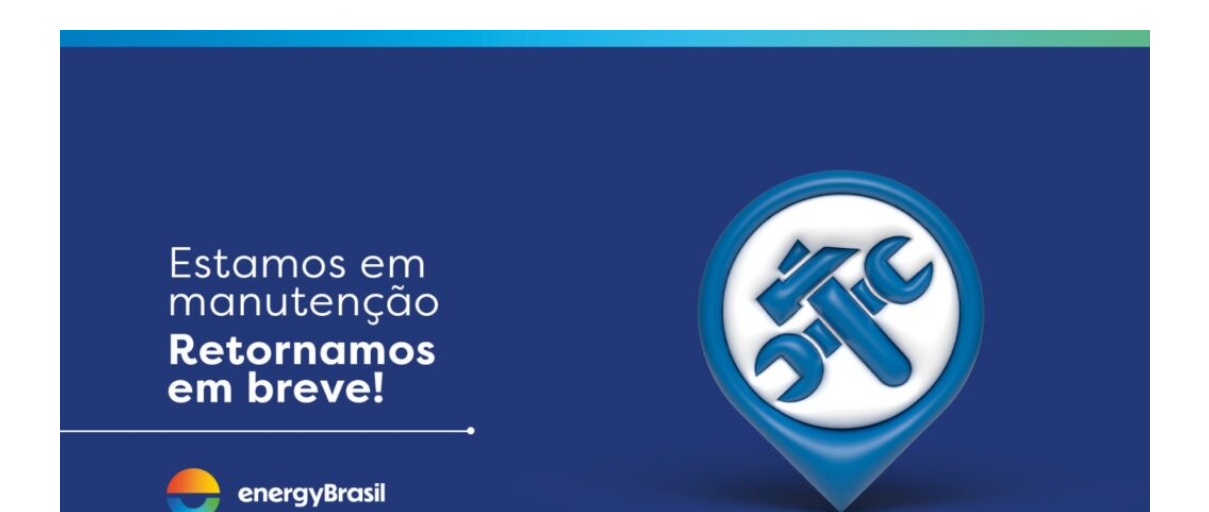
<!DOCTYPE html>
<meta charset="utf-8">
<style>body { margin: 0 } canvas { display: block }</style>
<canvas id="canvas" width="1209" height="512"></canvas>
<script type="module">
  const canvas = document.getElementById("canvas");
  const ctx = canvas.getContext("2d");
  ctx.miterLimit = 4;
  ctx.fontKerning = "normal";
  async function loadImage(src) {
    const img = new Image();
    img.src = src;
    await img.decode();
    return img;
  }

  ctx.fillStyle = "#ffffff";
  ctx.fillRect(0, 0, 1209, 512);
  ctx.drawImage(await loadImage("img1.png"), 60, 30, 1090, 482);
</script>
